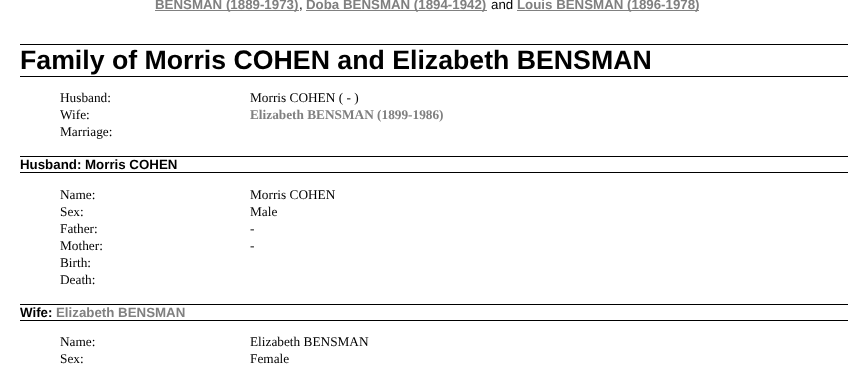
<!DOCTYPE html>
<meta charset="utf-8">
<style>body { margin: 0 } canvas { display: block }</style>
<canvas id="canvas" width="868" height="365"></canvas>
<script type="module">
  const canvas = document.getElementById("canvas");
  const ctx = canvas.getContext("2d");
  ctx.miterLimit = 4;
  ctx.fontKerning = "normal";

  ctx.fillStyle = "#ffffff";
  ctx.fillRect(0, 0, 868, 365);
  ctx.fillStyle = "#808080";
  ctx.fillRect(155, 10, 144, 1);
  ctx.font = "bold 13.3px Liberation Sans";
  ctx.fillText("BENSMAN (1889-1973)", 155, 9);
  ctx.font = "13.3px Liberation Sans";
  ctx.fillStyle = "#000000";
  ctx.fillText(",", 299, 9);
  ctx.fillStyle = "#808080";
  ctx.fillRect(306, 10, 181, 1);
  ctx.font = "bold 13.3px Liberation Sans";
  ctx.fillText("Doba BENSMAN (1894-1942)", 306, 9);
  ctx.font = "13.3px Liberation Sans";
  ctx.fillStyle = "#000000";
  ctx.fillText("and", 491, 9);
  ctx.fillStyle = "#808080";
  ctx.fillRect(517, 10, 182, 1);
  ctx.font = "bold 13.3px Liberation Sans";
  ctx.fillText("Louis BENSMAN (1896-1978)", 517, 9);
  ctx.fillStyle = "#000000";
  ctx.fillRect(20, 44, 828, 1);
  ctx.fillRect(20, 76, 828, 1);
  ctx.font = "bold 26.7px Liberation Sans";
  ctx.fillText("Family of Morris COHEN and Elizabeth BENSMAN", 20, 69);
  ctx.font = "13.3px Liberation Serif";
  ctx.fillText("Husband:", 60, 102);
  ctx.fillText("Morris COHEN ( - )", 250, 102);
  ctx.fillText("Wife:", 60, 119);
  ctx.font = "bold 13.3px Liberation Serif";
  ctx.fillStyle = "#808080";
  ctx.fillText("Elizabeth BENSMAN (1899-1986)", 250, 119);
  ctx.font = "13.3px Liberation Serif";
  ctx.fillStyle = "#000000";
  ctx.fillText("Marriage:", 60, 136);
  ctx.fillRect(20, 156, 828, 1);
  ctx.fillRect(20, 172, 828, 1);
  ctx.font = "bold 13.3px Liberation Sans";
  ctx.fillText("Husband: Morris COHEN", 20, 169);
  ctx.font = "13.3px Liberation Serif";
  ctx.fillText("Name:", 60, 199);
  ctx.fillText("Morris COHEN", 250, 199);
  ctx.fillText("Sex:", 60, 216);
  ctx.fillText("Male", 250, 216);
  ctx.fillText("Father:", 60, 233);
  ctx.fillText("-", 250, 233);
  ctx.fillText("Mother:", 60, 250);
  ctx.fillText("-", 250, 250);
  ctx.fillText("Birth:", 60, 267);
  ctx.fillText("Death:", 60, 284);
  ctx.fillRect(20, 304, 828, 1);
  ctx.fillRect(20, 320, 828, 1);
  ctx.font = "bold 13.3px Liberation Sans";
  ctx.fillText("Wife:", 20, 317);
  ctx.fillStyle = "#808080";
  ctx.fillText("Elizabeth BENSMAN", 56, 317);
  ctx.font = "13.3px Liberation Serif";
  ctx.fillStyle = "#000000";
  ctx.fillText("Name:", 60, 346);
  ctx.fillText("Elizabeth BENSMAN", 250, 346);
  ctx.fillText("Sex:", 60, 363);
  ctx.fillText("Female", 250, 363);
</script>
